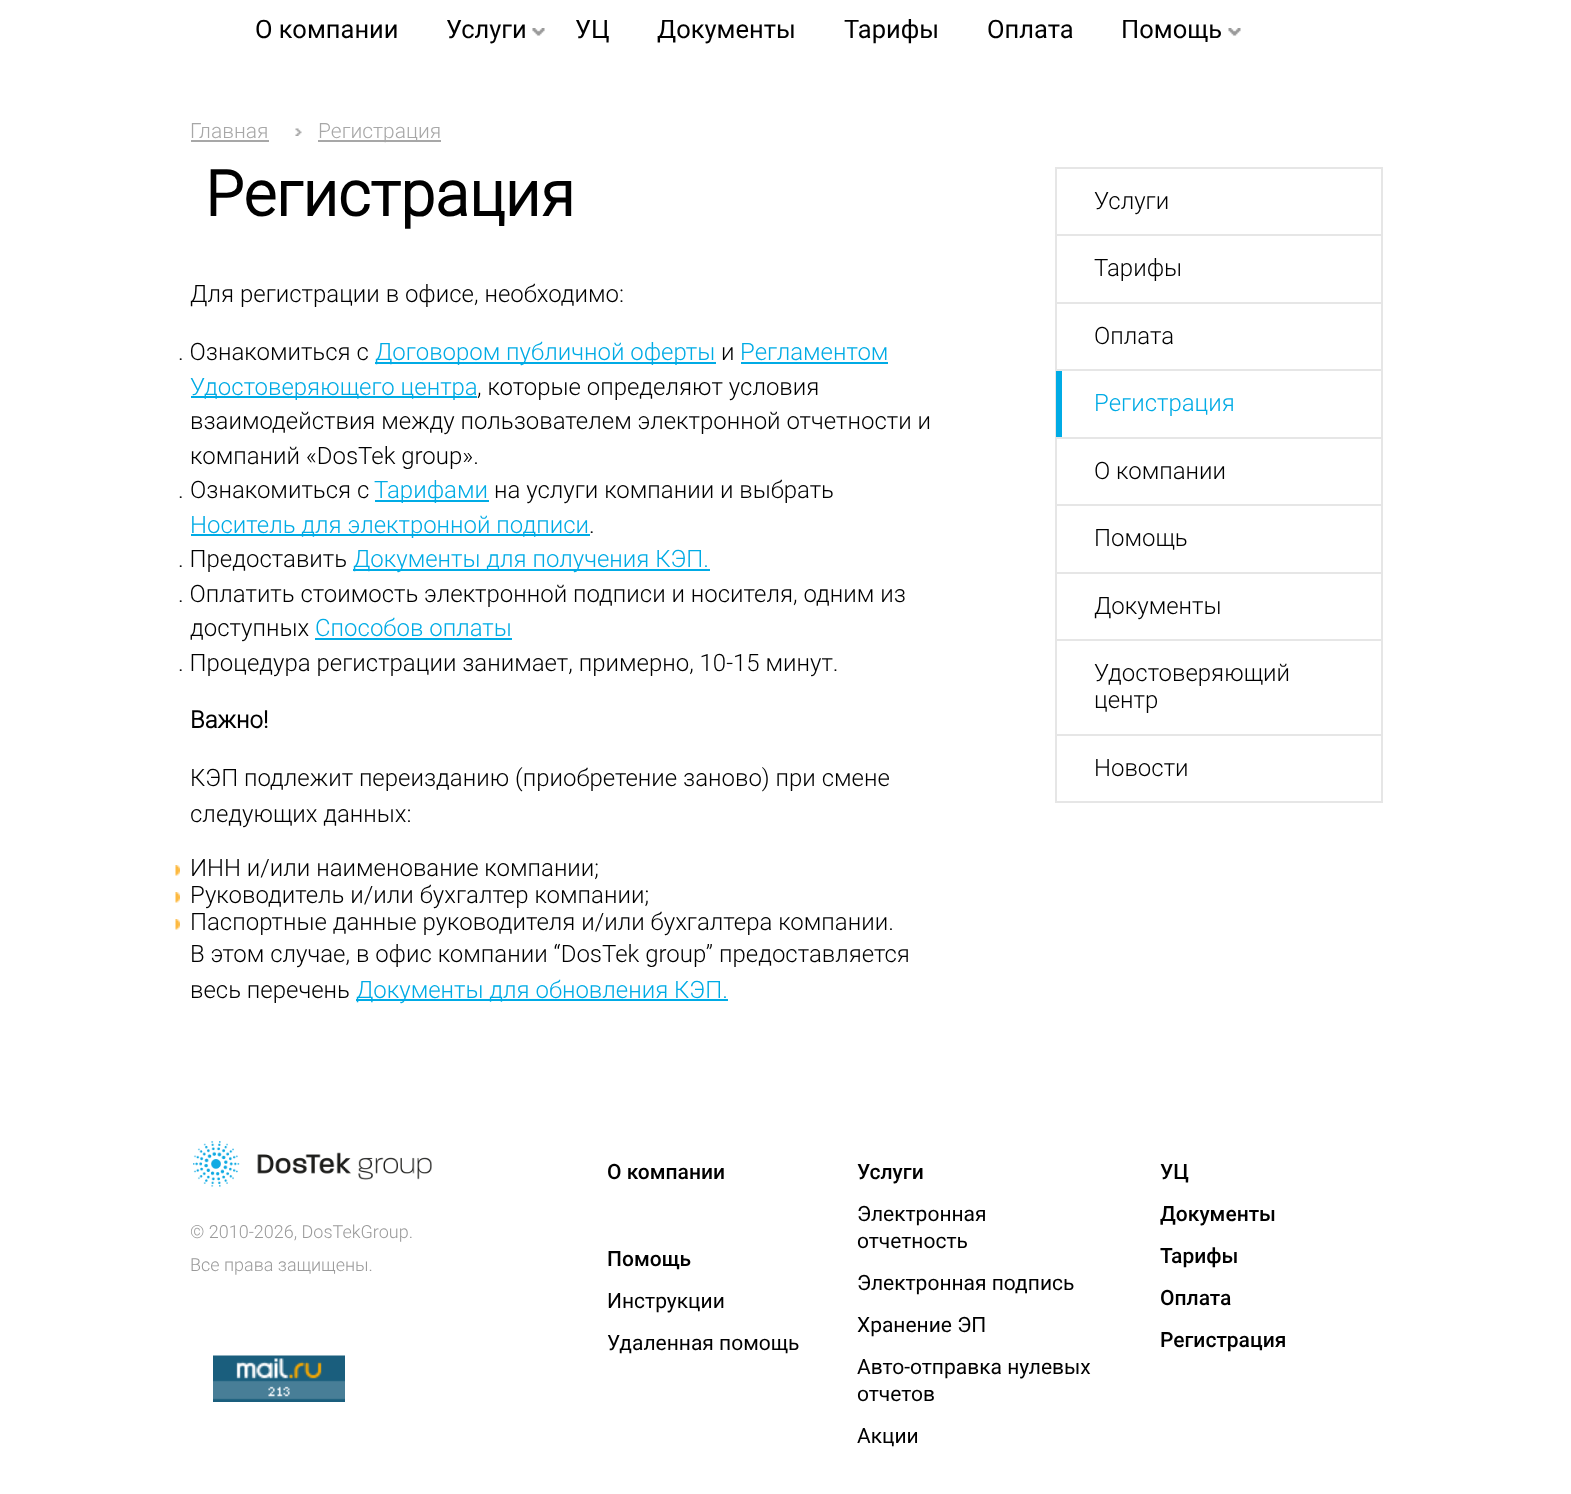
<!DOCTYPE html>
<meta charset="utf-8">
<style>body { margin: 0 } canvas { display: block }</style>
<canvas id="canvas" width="1571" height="1494"></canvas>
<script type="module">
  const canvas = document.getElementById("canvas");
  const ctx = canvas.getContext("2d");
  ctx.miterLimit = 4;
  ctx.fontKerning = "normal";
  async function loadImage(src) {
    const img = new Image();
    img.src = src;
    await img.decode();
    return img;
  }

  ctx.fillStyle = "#ffffff";
  ctx.fillRect(0, 0, 1571, 1494);
  ctx.font = "25.5px Roboto";
  ctx.fillStyle = "#000000";
  ctx.fillText("О компании", 255, 38);
  ctx.fillText("Услуги", 446, 38);
  ctx.drawImage(await loadImage("img1.png"), 532, 28, 13, 8);
  ctx.fillText("УЦ", 575, 38);
  ctx.fillText("Документы", 657, 38);
  ctx.fillText("Тарифы", 844, 38);
  ctx.fillText("Оплата", 987, 38);
  ctx.fillText("Помощь", 1121, 38);
  ctx.drawImage(await loadImage("img2.png"), 1228, 28, 13, 8);
  ctx.font = "300 21px Roboto";
  ctx.fillStyle = "#a7a7a7";
  ctx.fillText("Главная", 190, 138);
  ctx.fillRect(191, 140, 78, 2);
  ctx.drawImage(await loadImage("img3.png"), 295, 128, 7, 8);
  ctx.fillRect(318, 140, 123, 2);
  ctx.fillText("Регистрация", 318, 138);
  ctx.font = "bold 63px Roboto";
  ctx.fillStyle = "#000000";
  ctx.fillText("Регистрация", 205, 216);
  ctx.strokeStyle = "#e6e6e6";
  ctx.lineWidth = 2;
  ctx.strokeRect(1056, 168, 326, 634);
  ctx.fillStyle = "#e6e6e6";
  ctx.fillRect(1056, 234, 326, 2);
  ctx.font = "300 24px Roboto";
  ctx.fillStyle = "#000000";
  ctx.fillText("Услуги", 1094, 209);
  ctx.fillStyle = "#e6e6e6";
  ctx.fillRect(1056, 302, 326, 2);
  ctx.fillStyle = "#000000";
  ctx.fillText("Тарифы", 1094, 276);
  ctx.fillStyle = "#e6e6e6";
  ctx.fillRect(1056, 369, 326, 2);
  ctx.fillStyle = "#000000";
  ctx.fillText("Оплата", 1094, 344);
  ctx.fillStyle = "#e6e6e6";
  ctx.fillRect(1056, 437, 326, 2);
  ctx.fillStyle = "#00abe5";
  ctx.fillRect(1056, 371, 6, 66);
  ctx.fillText("Регистрация", 1094, 411);
  ctx.fillStyle = "#e6e6e6";
  ctx.fillRect(1056, 504, 326, 2);
  ctx.fillStyle = "#000000";
  ctx.fillText("О компании", 1094, 479);
  ctx.fillStyle = "#e6e6e6";
  ctx.fillRect(1056, 572, 326, 2);
  ctx.fillStyle = "#000000";
  ctx.fillText("Помощь", 1094, 546);
  ctx.fillStyle = "#e6e6e6";
  ctx.fillRect(1056, 639, 326, 2);
  ctx.fillStyle = "#000000";
  ctx.fillText("Документы", 1094, 614);
  ctx.fillStyle = "#e6e6e6";
  ctx.fillRect(1056, 734, 326, 2);
  ctx.fillStyle = "#000000";
  ctx.fillText("Удостоверяющий", 1094, 681);
  ctx.fillText("центр", 1094, 708);
  ctx.fillText("Новости", 1094, 776);
  ctx.fillText("Для регистрации в офисе, необходимо:", 190, 302);
  ctx.fillText(". Ознакомиться с", 178, 360);
  ctx.fillStyle = "#00abe5";
  ctx.fillRect(375, 362, 341, 2);
  ctx.fillText("Договором публичной оферты", 375, 360);
  ctx.fillStyle = "#000000";
  ctx.fillText("и", 721, 360);
  ctx.fillStyle = "#00abe5";
  ctx.fillText("Регламентом", 740, 360);
  ctx.fillRect(741, 362, 147, 2);
  ctx.fillRect(191, 396, 286, 2);
  ctx.fillText("Удостоверяющего центра", 190, 395);
  ctx.fillStyle = "#000000";
  ctx.fillText(", которые определяют условия", 477, 395);
  ctx.fillText("взаимодействия между пользователем электронной отчетности и", 190, 429);
  ctx.fillText("компаний «DosTek group».", 190, 464);
  ctx.fillText(".", 178, 498);
  ctx.fillText("Ознакомиться с", 190, 498);
  ctx.fillStyle = "#00abe5";
  ctx.fillRect(375, 500, 114, 2);
  ctx.fillText("Тарифами", 374, 498);
  ctx.fillStyle = "#000000";
  ctx.fillText("на услуги компании и выбрать", 494, 498);
  ctx.fillStyle = "#00abe5";
  ctx.fillRect(191, 534, 399, 2);
  ctx.fillText("Носитель для электронной подписи", 190, 533);
  ctx.fillStyle = "#000000";
  ctx.fillText(".", 589, 533);
  ctx.fillText(". Предоставить", 178, 567);
  ctx.fillStyle = "#00abe5";
  ctx.fillRect(353, 569, 357, 2);
  ctx.fillText("Документы для получения КЭП.", 353, 567);
  ctx.fillStyle = "#000000";
  ctx.fillText(". Оплатить стоимость электронной подписи и носителя, одним из", 178, 602);
  ctx.fillText("доступных", 190, 636);
  ctx.fillStyle = "#00abe5";
  ctx.fillText("Способов оплаты", 315, 636);
  ctx.fillRect(315, 638, 197, 2);
  ctx.fillStyle = "#000000";
  ctx.fillText(". Процедура регистрации занимает, примерно, 10-15 минут.", 178, 671);
  ctx.font = "bold 24px Roboto";
  ctx.fillText("Важно!", 190, 728);
  ctx.font = "300 24px Roboto";
  ctx.fillText("КЭП подлежит переизданию (приобретение заново) при смене", 190, 786);
  ctx.fillText("следующих данных:", 190, 822);
  ctx.drawImage(await loadImage("img4.png"), 175, 865, 5, 11);
  ctx.fillText("ИНН и/или наименование компании;", 190, 876);
  ctx.drawImage(await loadImage("img4.png"), 175, 892, 5, 11);
  ctx.fillText("Руководитель и/или бухгалтер компании;", 190, 903);
  ctx.drawImage(await loadImage("img4.png"), 175, 919, 5, 11);
  ctx.fillText("Паспортные данные руководителя и/или бухгалтера компании.", 190, 930);
  ctx.fillText("В этом случае, в офис компании “DosTek group” предоставляется", 190, 962);
  ctx.fillText("весь перечень", 190, 998);
  ctx.fillStyle = "#00abe5";
  ctx.fillRect(356, 999, 372, 2);
  ctx.fillText("Документы для обновления КЭП.", 356, 998);
  ctx.drawImage(await loadImage("img5.png"), 193, 1141, 239, 46);
  ctx.font = "300 18px Roboto";
  ctx.fillStyle = "#9a9a9a";
  ctx.fillText("© 2010-2026, DosTekGroup.", 190, 1238);
  ctx.fillText("Все права защищены.", 190, 1271);
  ctx.drawImage(await loadImage("img6.png"), 213, 1355, 132, 47);
  ctx.font = "500 21px Roboto";
  ctx.fillStyle = "#000000";
  ctx.fillText("О компании", 607, 1179);
  ctx.fillText("Помощь", 607, 1266);
  ctx.font = "21px Roboto";
  ctx.fillText("Инструкции", 607, 1308);
  ctx.fillText("Удаленная помощь", 607, 1350);
  ctx.font = "500 21px Roboto";
  ctx.fillText("Услуги", 857, 1179);
  ctx.font = "21px Roboto";
  ctx.fillText("Электронная", 857, 1221);
  ctx.fillText("отчетность", 857, 1248);
  ctx.fillText("Электронная подпись", 857, 1290);
  ctx.fillText("Хранение ЭП", 857, 1332);
  ctx.fillText("Авто-отправка нулевых", 857, 1374);
  ctx.fillText("отчетов", 857, 1401);
  ctx.fillText("Акции", 857, 1443);
  ctx.font = "500 21px Roboto";
  ctx.fillText("УЦ", 1160, 1179);
  ctx.fillText("Документы", 1160, 1221);
  ctx.fillText("Тарифы", 1160, 1263);
  ctx.fillText("Оплата", 1160, 1305);
  ctx.fillText("Регистрация", 1160, 1347);
</script>
